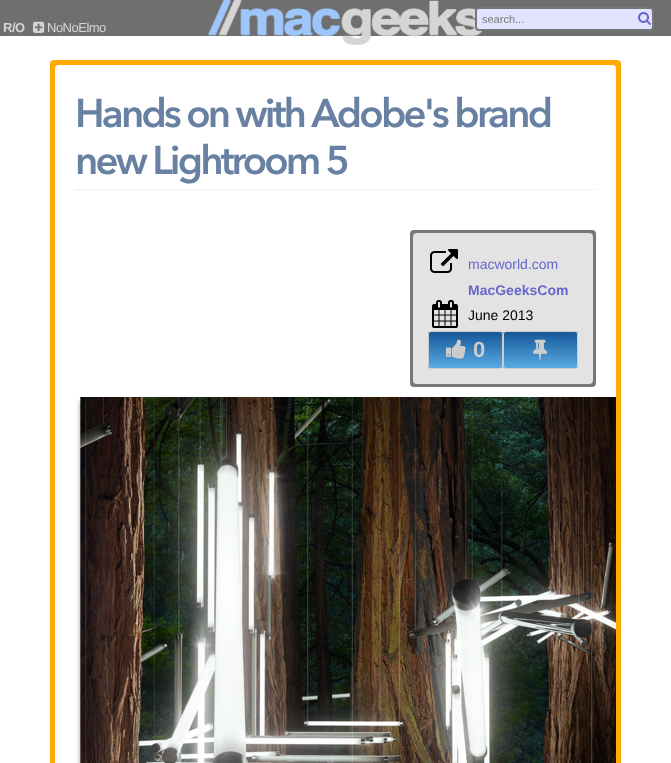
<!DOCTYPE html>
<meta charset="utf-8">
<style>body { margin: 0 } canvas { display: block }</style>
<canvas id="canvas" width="671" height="763"></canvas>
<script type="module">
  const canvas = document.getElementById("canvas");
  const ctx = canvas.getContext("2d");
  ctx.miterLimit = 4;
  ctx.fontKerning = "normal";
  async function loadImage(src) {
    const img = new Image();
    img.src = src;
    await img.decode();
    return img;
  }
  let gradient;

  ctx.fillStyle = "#ffffff";
  ctx.fillRect(0, 0, 671, 763);
  ctx.fillStyle = "#6f6f6f";
  ctx.fillRect(0, 0, 671, 36);
  ctx.drawImage(await loadImage("img1.png"), 208, 0, 275, 45);
  ctx.fillStyle = "#e2e4ff";
  ctx.beginPath();
  ctx.roundRect(476, 8, 177, 22, 3);
  ctx.fill();
  ctx.strokeStyle = "#777777";
  ctx.lineWidth = 2;
  ctx.stroke();
  ctx.font = "11px Liberation Sans";
  ctx.fillStyle = "#777777";
  ctx.fillText("search...", 482, 23);
  ctx.drawImage(await loadImage("img2.png"), 638, 12, 13, 13);
  ctx.letterSpacing = "-0.5px";
  ctx.font = "bold 13px Liberation Sans";
  ctx.fillStyle = "#d5d5d5";
  ctx.fillText("R/O", 3, 32);
  ctx.drawImage(await loadImage("img3.png"), 33, 21, 12, 12);
  ctx.font = "13px Liberation Sans";
  ctx.fillText("NoNoElmo", 47, 32);
  ctx.fillStyle = "#ffaa00";
  ctx.beginPath();
  ctx.roundRect(50, 60, 571, 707, 4);
  ctx.fill();
  ctx.fillStyle = "#ffffff";
  ctx.beginPath();
  ctx.roundRect(55, 65, 561, 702, 4);
  ctx.fill();
  ctx.beginPath();
  ctx.moveTo(75, 189.5);
  ctx.lineTo(596, 189.5);
  ctx.strokeStyle = "#e0e0e0";
  ctx.lineWidth = 1;
  ctx.setLineDash([1, 1]);
  ctx.stroke();
  ctx.letterSpacing = "-2.8px";
  ctx.font = "bold 40px 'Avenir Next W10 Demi'";
  ctx.fillStyle = "#6881a3";
  ctx.fillText("Hands on with Adobe's brand", 75, 127);
  ctx.fillText("new Lightroom 5", 75, 174);
  ctx.fillStyle = "#777777";
  ctx.beginPath();
  ctx.roundRect(410, 230, 186, 157, 4);
  ctx.fill();
  ctx.fillStyle = "#e3e3e3";
  ctx.beginPath();
  ctx.roundRect(413, 233, 180, 151, 4);
  ctx.fill();
  ctx.drawImage(await loadImage("img4.png"), 430, 249, 28, 24);
  ctx.letterSpacing = "0px";
  ctx.font = "14px Liberation Sans";
  ctx.fillStyle = "#6666cc";
  ctx.fillText("macworld.com", 468, 269);
  ctx.font = "bold 14px Liberation Sans";
  ctx.fillText("MacGeeksCom", 468, 295);
  ctx.drawImage(await loadImage("img5.png"), 432, 300, 26, 28);
  ctx.font = "14px Liberation Sans";
  ctx.fillStyle = "#000000";
  ctx.fillText("June 2013", 468, 320);
  ctx.save();
  ctx.beginPath();
  ctx.roundRect(428, 331, 75, 38, 3);
  ctx.clip();
  gradient = ctx.createLinearGradient(429, 332, 429, 368);
  gradient.addColorStop(0, "#155899");
  gradient.addColorStop(1, "#59aae3");
  ctx.fillStyle = gradient;
  ctx.fillRect(428, 332, 75, 36);
  ctx.restore();
  ctx.beginPath();
  ctx.roundRect(428.5, 331.5, 74, 37, 2.5);
  ctx.strokeStyle = "#cccccc";
  ctx.setLineDash([]);
  ctx.stroke();
  ctx.drawImage(await loadImage("img6.png"), 446, 339, 20, 20);
  ctx.font = "bold 22px Liberation Sans";
  ctx.fillStyle = "#cccccc";
  ctx.fillText("0", 473, 357);
  ctx.save();
  ctx.beginPath();
  ctx.roundRect(503, 331, 75, 38, 3);
  ctx.clip();
  gradient = ctx.createLinearGradient(504, 332, 504, 368);
  gradient.addColorStop(0, "#155899");
  gradient.addColorStop(1, "#59aae3");
  ctx.fillStyle = gradient;
  ctx.fillRect(503, 332, 75, 36);
  ctx.restore();
  ctx.beginPath();
  ctx.roundRect(503.5, 331.5, 74, 37, 2.5);
  ctx.stroke();
  ctx.drawImage(await loadImage("img7.png"), 533, 339, 15, 22);
  ctx.drawImage(await loadImage("img8.png"), 76, 397, 540, 366);
</script>
